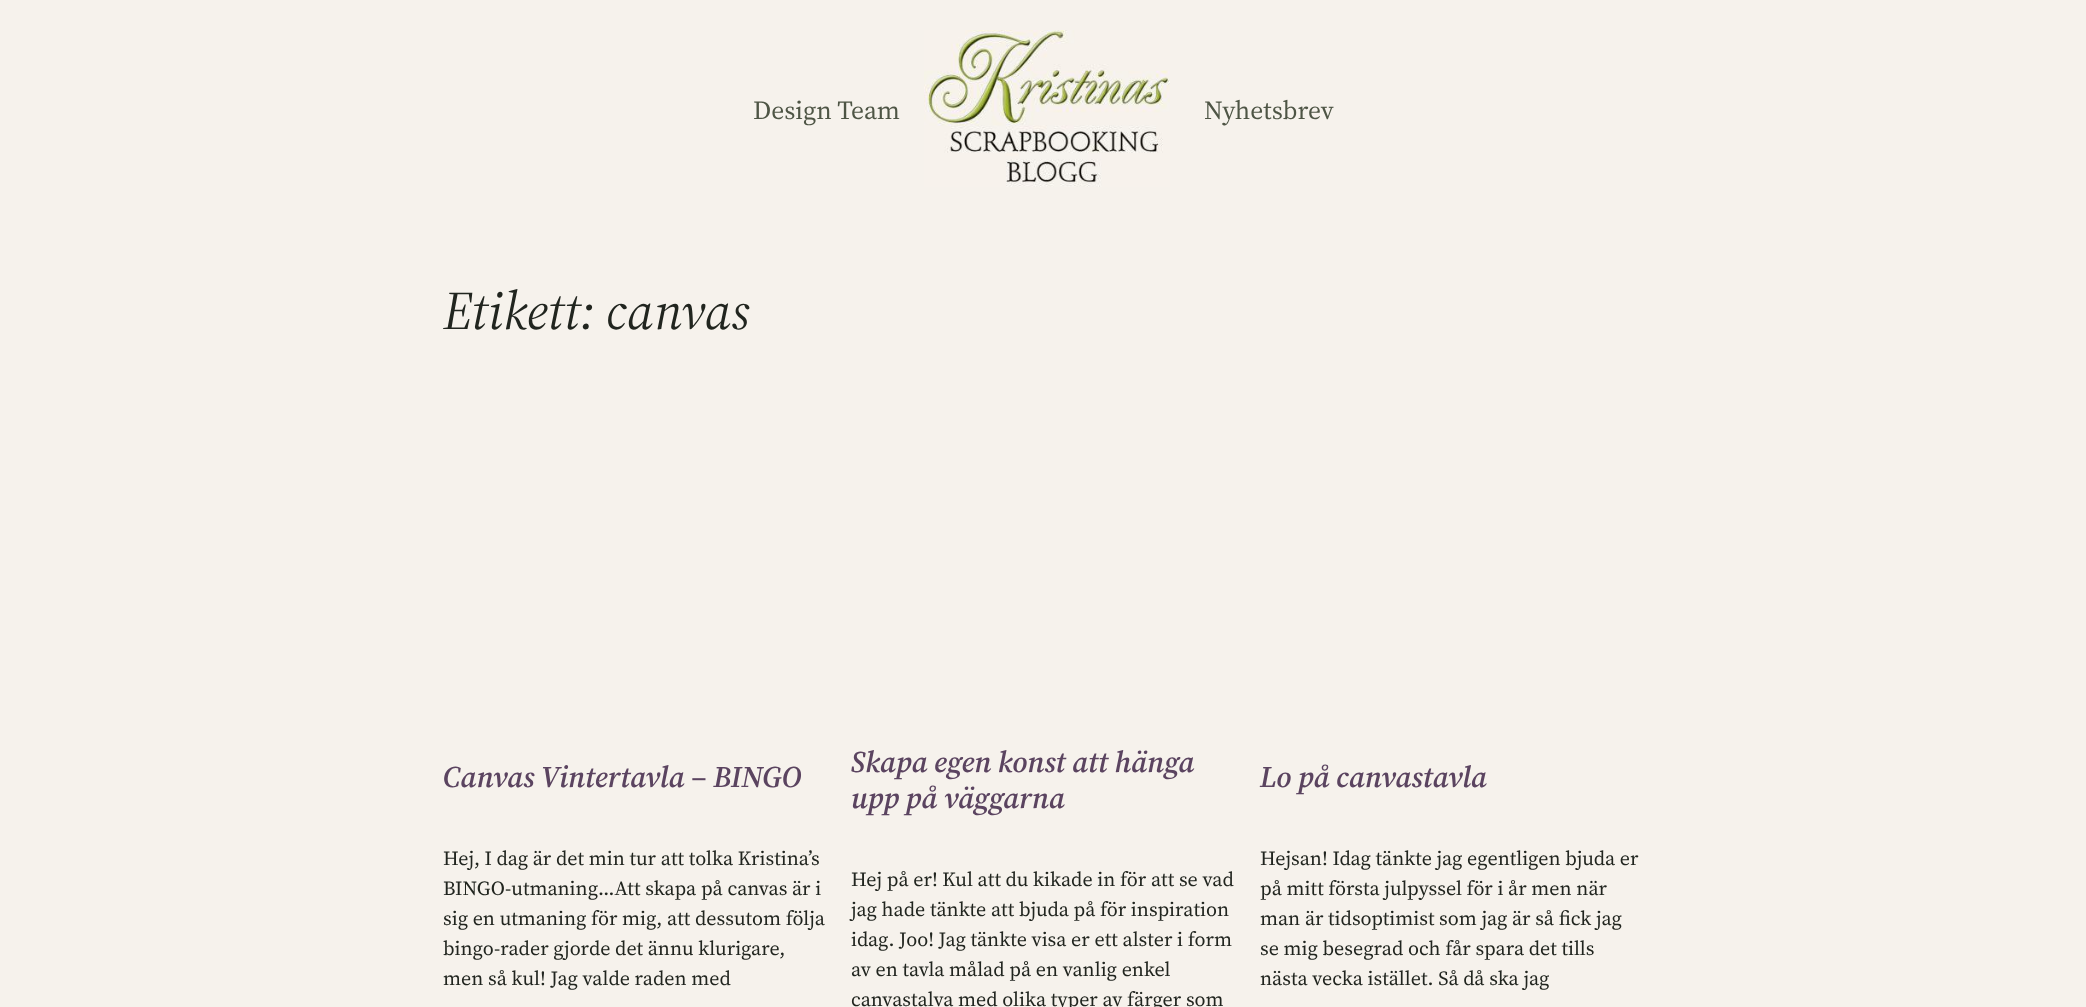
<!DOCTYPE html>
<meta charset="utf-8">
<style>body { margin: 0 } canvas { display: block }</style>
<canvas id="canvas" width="2086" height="1007"></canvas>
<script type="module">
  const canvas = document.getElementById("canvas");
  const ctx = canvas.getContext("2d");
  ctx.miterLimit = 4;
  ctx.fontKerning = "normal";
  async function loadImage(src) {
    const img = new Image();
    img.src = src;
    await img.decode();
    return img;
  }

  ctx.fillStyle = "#f6f2ec";
  ctx.fillRect(0, 0, 2086, 1007);
  ctx.font = "26px 'Source Serif 4'";
  ctx.fillStyle = "#4e5545";
  ctx.fillText("Design Team", 753, 119);
  ctx.drawImage(await loadImage("img1.png"), 924, 30, 246, 157);
  ctx.fillText("Nyhetsbrev", 1204, 119);
  ctx.font = "italic 54px 'Source Serif 4'";
  ctx.fillStyle = "#21251f";
  ctx.fillText("Etikett: canvas", 443, 329);
  ctx.font = "italic 600 30px 'Source Serif 4'";
  ctx.fillStyle = "#5b4460";
  ctx.fillText("Canvas Vintertavla – BINGO", 443, 787);
  ctx.font = "20px 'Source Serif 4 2'";
  ctx.fillStyle = "#21251f";
  ctx.fillText("Hej, I dag är det min tur att tolka Kristina’s", 443, 865);
  ctx.fillText("BINGO-utmaning…Att skapa på canvas är i", 443, 895);
  ctx.fillText("sig en utmaning för mig, att dessutom följa", 443, 925);
  ctx.fillText("bingo-rader gjorde det ännu klurigare,", 443, 955);
  ctx.fillText("men så kul! Jag valde raden med", 443, 985);
  ctx.font = "italic 600 30px 'Source Serif 4'";
  ctx.fillStyle = "#5b4460";
  ctx.fillText("Skapa egen konst att hänga", 851, 772);
  ctx.fillText("upp på väggarna", 851, 808);
  ctx.font = "20px 'Source Serif 4 2'";
  ctx.fillStyle = "#21251f";
  ctx.fillText("Hej på er! Kul att du kikade in för att se vad", 851, 886);
  ctx.fillText("jag hade tänkte att bjuda på för inspiration", 851, 916);
  ctx.fillText("idag. Joo! Jag tänkte visa er ett alster i form", 851, 946);
  ctx.fillText("av en tavla målad på en vanlig enkel", 851, 976);
  ctx.fillText("canvastalva med olika typer av färger som", 851, 1006);
  ctx.font = "italic 600 30px 'Source Serif 4'";
  ctx.fillStyle = "#5b4460";
  ctx.fillText("Lo på canvastavla", 1260, 787);
  ctx.font = "20px 'Source Serif 4 2'";
  ctx.fillStyle = "#21251f";
  ctx.fillText("Hejsan! Idag tänkte jag egentligen bjuda er", 1260, 865);
  ctx.fillText("på mitt första julpyssel för i år men när", 1260, 895);
  ctx.fillText("man är tidsoptimist som jag är så fick jag", 1260, 925);
  ctx.fillText("se mig besegrad och får spara det tills", 1260, 955);
  ctx.fillText("nästa vecka istället. Så då ska jag", 1260, 985);
</script>
